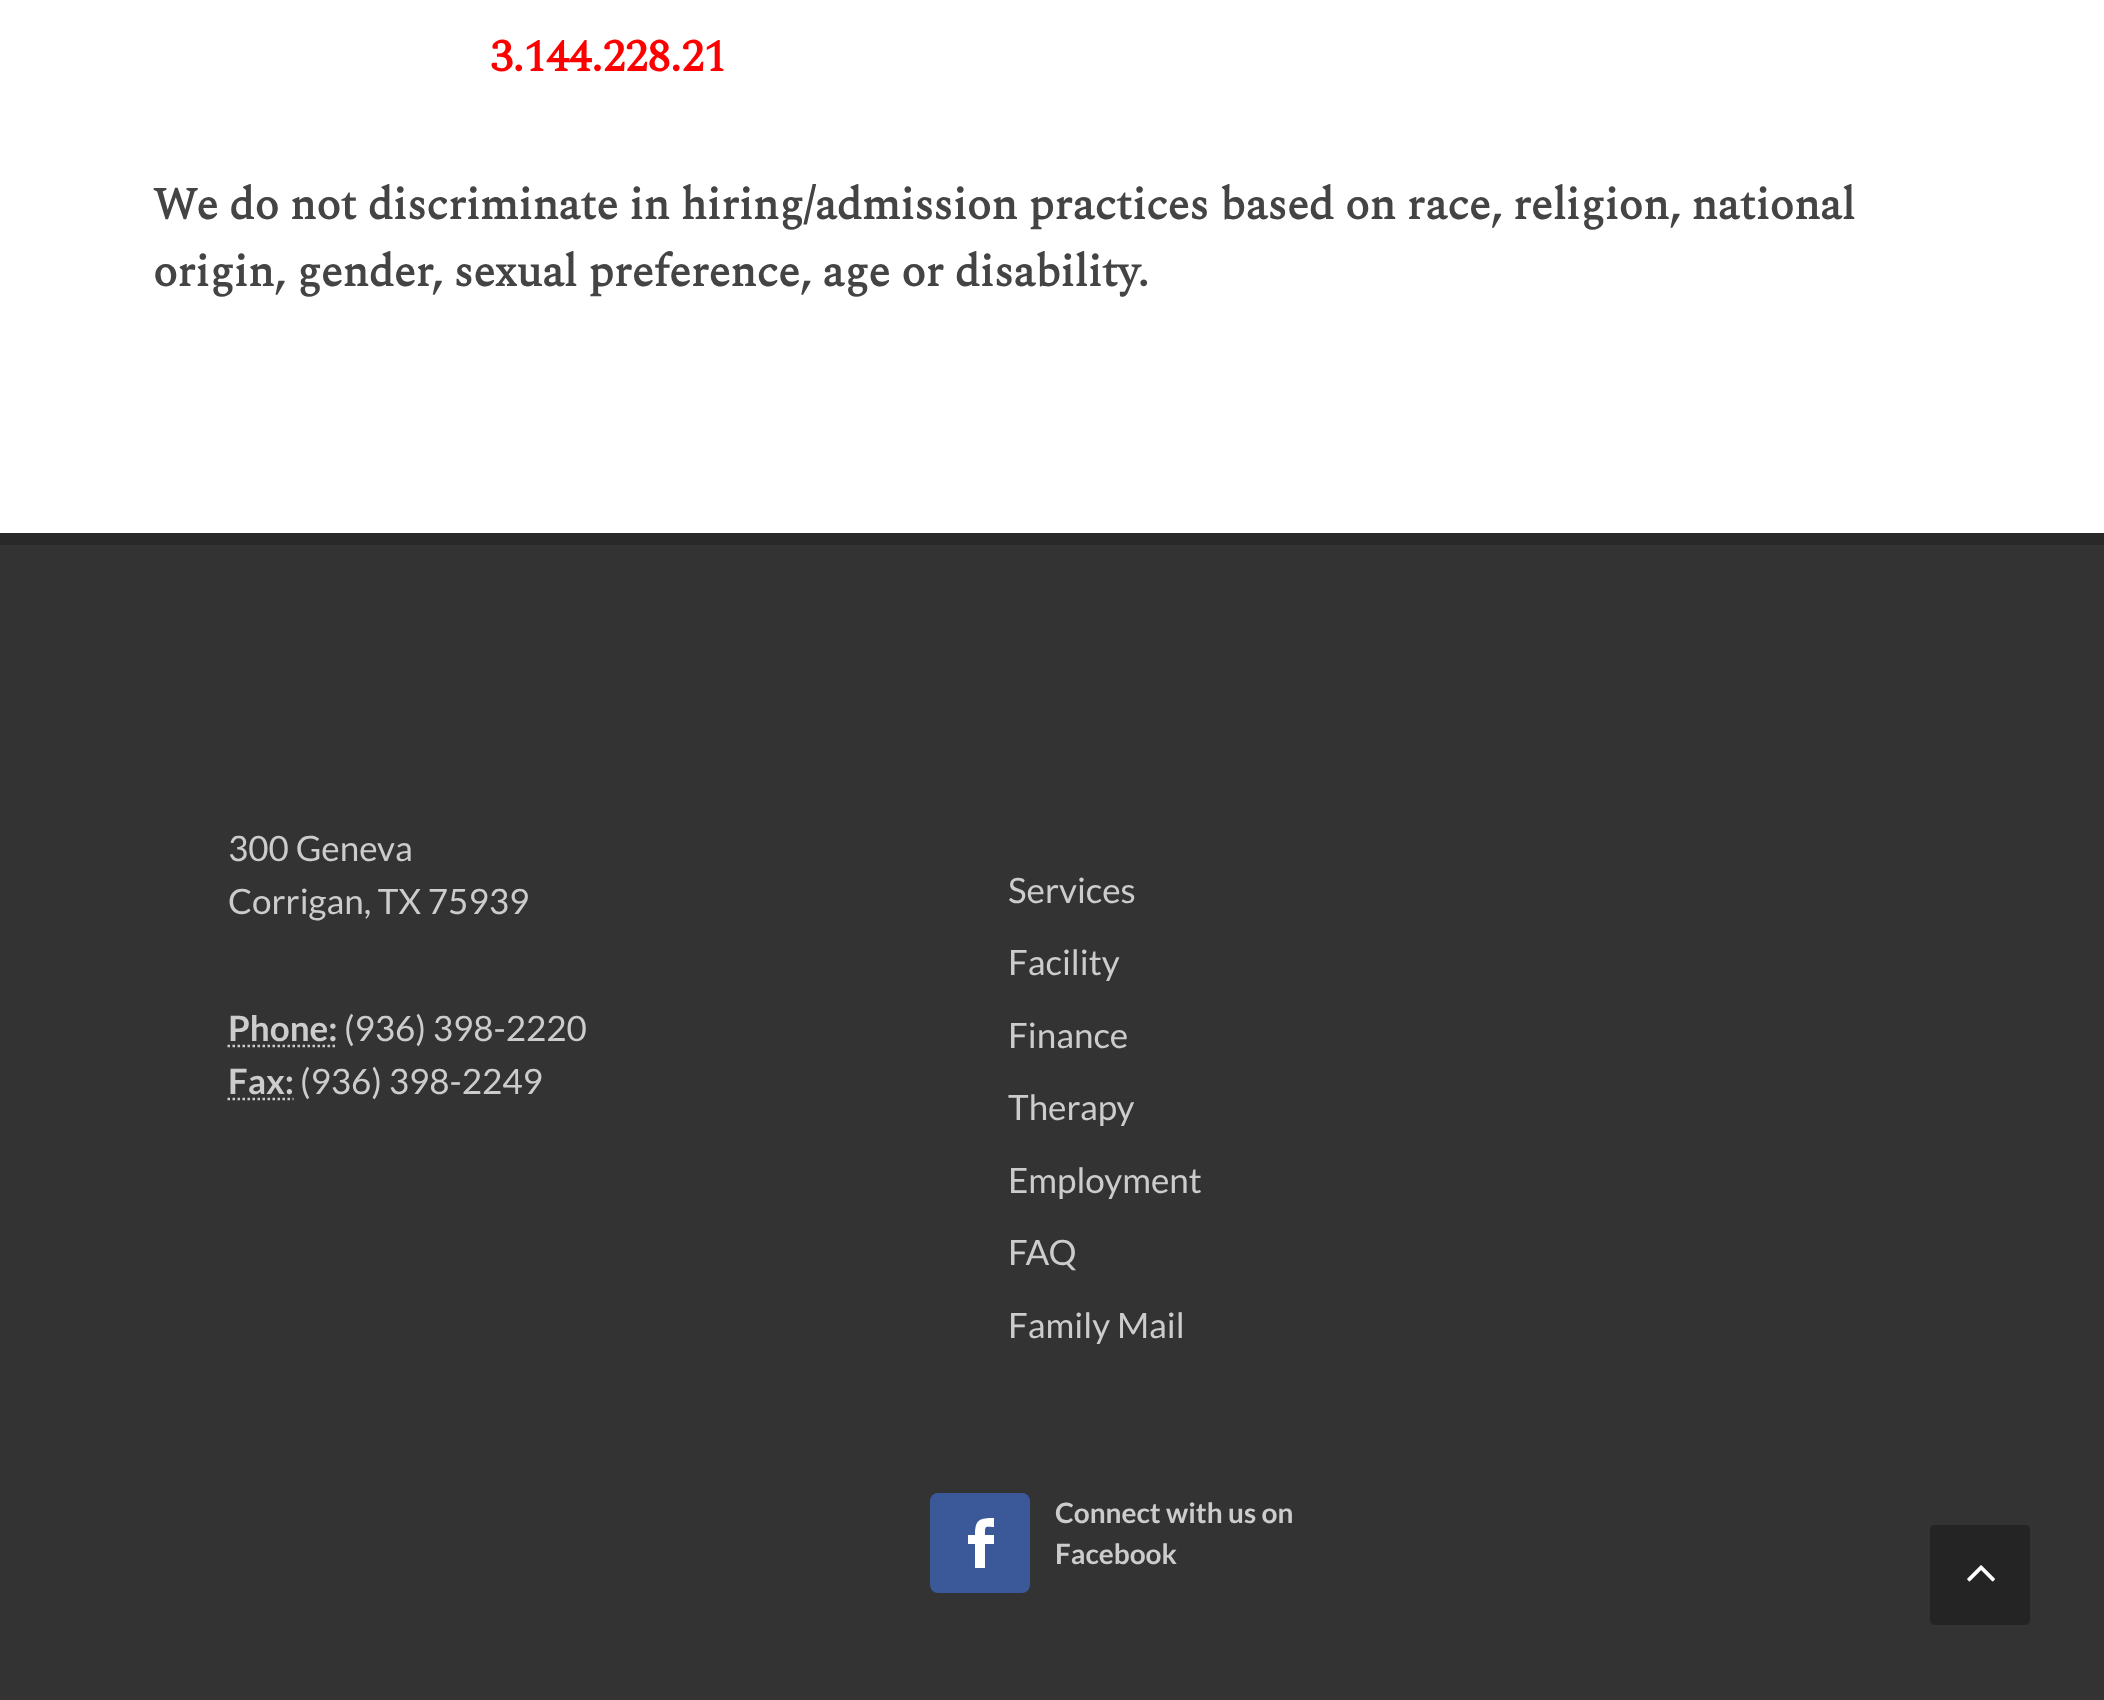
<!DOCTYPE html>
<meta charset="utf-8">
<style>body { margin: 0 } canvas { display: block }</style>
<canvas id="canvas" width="2104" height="1700"></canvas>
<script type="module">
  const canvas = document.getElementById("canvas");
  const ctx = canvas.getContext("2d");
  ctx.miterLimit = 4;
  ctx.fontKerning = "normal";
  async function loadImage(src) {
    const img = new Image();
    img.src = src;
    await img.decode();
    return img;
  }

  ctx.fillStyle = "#ffffff";
  ctx.fillRect(0, 0, 2104, 1700);
  ctx.font = "bold 45px Spectral";
  ctx.fillStyle = "#ff0000";
  ctx.fillText("3.144.228.21", 490, 71);
  ctx.fillStyle = "#444444";
  ctx.fillText("We do not discriminate in hiring/admission practices based on race, religion, national", 153, 219);
  ctx.fillText("origin, gender, sexual preference, age or disability.", 153, 286);
  ctx.fillStyle = "#333333";
  ctx.fillRect(0, 545, 2104, 1155);
  ctx.fillStyle = "#292929";
  ctx.fillRect(0, 533, 2104, 12);
  ctx.font = "35px Lato";
  ctx.fillStyle = "#cccccc";
  ctx.fillText("300 Geneva", 228, 861);
  ctx.fillText("Corrigan, TX 75939", 228, 914);
  ctx.font = "bold 35px Lato";
  ctx.fillText("Phone:", 228, 1041);
  ctx.beginPath();
  ctx.moveTo(227.5, 1046);
  ctx.lineTo(337, 1046);
  ctx.strokeStyle = "#cccccc";
  ctx.lineWidth = 2.5;
  ctx.setLineDash([2.5, 2.5]);
  ctx.stroke();
  ctx.font = "35px Lato";
  ctx.fillText("(936) 398-2220", 344, 1041);
  ctx.font = "bold 35px Lato";
  ctx.fillText("Fax:", 228, 1094);
  ctx.beginPath();
  ctx.moveTo(227.5, 1099);
  ctx.lineTo(293.5, 1099);
  ctx.stroke();
  ctx.font = "35px Lato";
  ctx.fillText("(936) 398-2249", 300, 1094);
  ctx.fillText("Services", 1008, 903);
  ctx.fillText("Facility", 1008, 975);
  ctx.fillText("Finance", 1008, 1048);
  ctx.fillText("Therapy", 1008, 1120);
  ctx.fillText("Employment", 1008, 1193);
  ctx.fillText("FAQ", 1008, 1265);
  ctx.fillText("Family Mail", 1008, 1338);
  ctx.fillStyle = "#3b5998";
  ctx.beginPath();
  ctx.roundRect(930, 1493, 100, 100, 8);
  ctx.fill();
  ctx.fillStyle = "#ffffff";
  ctx.beginPath();
  ctx.moveTo(968, 1544);
  ctx.lineTo(968, 1535);
  ctx.lineTo(975, 1535);
  ctx.bezierCurveTo(975, 1519, 980, 1518, 994, 1518);
  ctx.lineTo(994, 1527);
  ctx.bezierCurveTo(985, 1527, 985, 1525, 985, 1535);
  ctx.lineTo(994, 1535);
  ctx.lineTo(994, 1544);
  ctx.lineTo(985, 1544);
  ctx.lineTo(985, 1568);
  ctx.lineTo(975, 1568);
  ctx.lineTo(975, 1544);
  ctx.closePath();
  ctx.fill();
  ctx.font = "bold 28px Lato";
  ctx.fillStyle = "#cccccc";
  ctx.fillText("Connect with us on", 1055, 1523);
  ctx.fillText("Facebook", 1055, 1564);
  ctx.fillStyle = "#242424";
  ctx.beginPath();
  ctx.roundRect(1930, 1525, 100, 100, 5);
  ctx.fill();
  ctx.drawImage(await loadImage("img1.png"), 1967, 1565, 28, 17);
</script>
